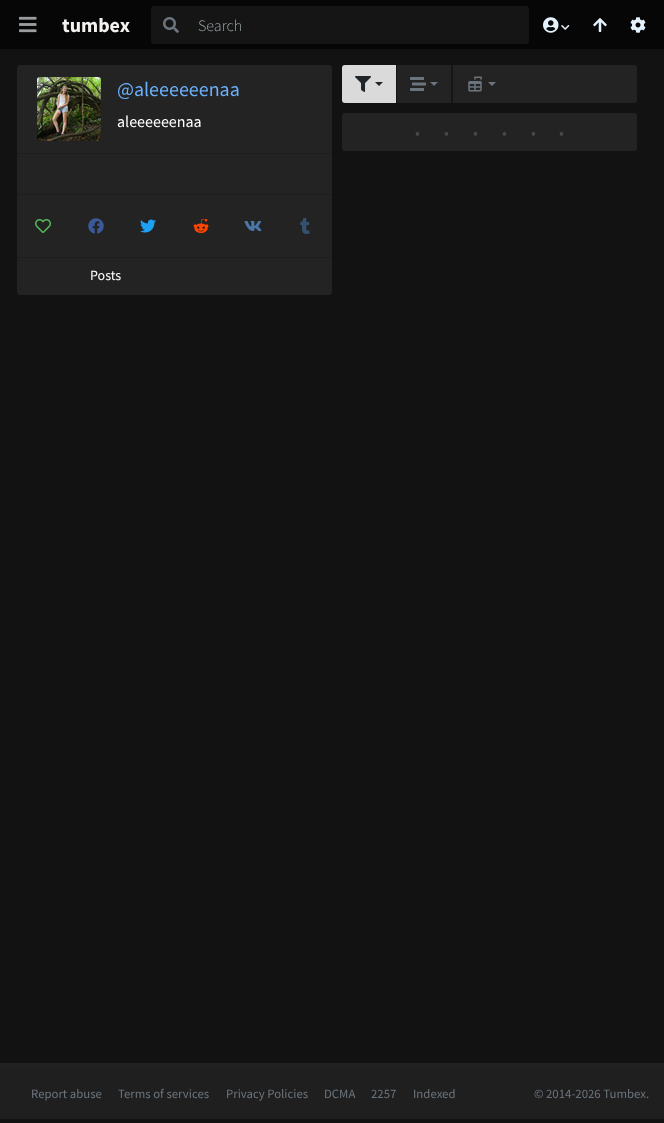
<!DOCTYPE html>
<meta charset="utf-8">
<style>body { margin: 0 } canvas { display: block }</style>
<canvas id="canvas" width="664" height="1123"></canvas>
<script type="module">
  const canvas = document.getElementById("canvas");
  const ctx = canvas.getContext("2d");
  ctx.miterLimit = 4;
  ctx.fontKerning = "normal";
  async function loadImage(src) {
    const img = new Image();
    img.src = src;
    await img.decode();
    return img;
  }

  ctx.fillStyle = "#121212";
  ctx.fillRect(0, 0, 664, 1123);
  ctx.fillStyle = "#060606";
  ctx.fillRect(0, 0, 664, 49);
  ctx.drawImage(await loadImage("img1.png"), 19, 16, 18, 17);
  ctx.font = "bold 20px Source Sans Pro";
  ctx.fillStyle = "#f4f1ef";
  ctx.fillText("tumbex", 62, 32);
  ctx.fillStyle = "#151515";
  ctx.beginPath();
  ctx.roundRect(151, 6, 378, 38, 3);
  ctx.fill();
  ctx.drawImage(await loadImage("img2.png"), 163, 17, 16, 16);
  ctx.font = "300 16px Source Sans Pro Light";
  ctx.fillStyle = "#9ea9ae";
  ctx.fillText("Search", 198, 31);
  ctx.drawImage(await loadImage("img3.png"), 543, 17, 16, 16);
  ctx.drawImage(await loadImage("img4.png"), 561, 25, 9, 5);
  ctx.drawImage(await loadImage("img5.png"), 593, 18, 14, 14);
  ctx.drawImage(await loadImage("img6.png"), 630, 17, 16, 16);
  ctx.fillStyle = "#232323";
  ctx.beginPath();
  ctx.roundRect(17, 65, 315, 230, 3);
  ctx.fill();
  ctx.fillStyle = "#1e1e1e";
  ctx.fillRect(17, 153, 315, 1);
  ctx.drawImage(await loadImage("img7.png"), 37, 77, 64, 64);
  ctx.font = "20px Source Sans Pro";
  ctx.fillStyle = "#6ab0fb";
  ctx.fillText("@aleeeeeenaa", 117, 96);
  ctx.font = "16px Source Sans Pro";
  ctx.fillStyle = "#ffffff";
  ctx.fillText("aleeeeeenaa", 117, 127);
  ctx.fillStyle = "#1e1e1e";
  ctx.fillRect(17, 194, 315, 1);
  ctx.fillRect(17, 257, 315, 1);
  ctx.drawImage(await loadImage("img8.png"), 35, 219, 16, 14);
  ctx.drawImage(await loadImage("img9.png"), 88, 218, 16, 16);
  ctx.drawImage(await loadImage("img10.png"), 140, 219, 16, 14);
  ctx.drawImage(await loadImage("img11.png"), 193, 219, 16, 14);
  ctx.drawImage(await loadImage("img12.png"), 244, 221, 18, 10);
  ctx.drawImage(await loadImage("img13.png"), 300, 218, 10, 16);
  ctx.font = "14px Source Sans Pro";
  ctx.fillStyle = "#ffffff";
  ctx.fillText("Posts", 90, 280);
  ctx.fillStyle = "#232323";
  ctx.beginPath();
  ctx.roundRect(342, 65, 295, 38, 3);
  ctx.fill();
  ctx.fillStyle = "#151515";
  ctx.fillRect(396, 65, 1, 38);
  ctx.fillStyle = "#dadada";
  ctx.beginPath();
  ctx.roundRect(342, 65, 54, 38, [3, 0, 0, 3]);
  ctx.fill();
  ctx.drawImage(await loadImage("img14.png"), 355, 76, 16, 16);
  ctx.fillStyle = "#212529";
  ctx.beginPath();
  ctx.moveTo(375, 82);
  ctx.lineTo(383, 82);
  ctx.lineTo(379, 86);
  ctx.closePath();
  ctx.fill();
  ctx.fillStyle = "#151515";
  ctx.fillRect(451, 65, 2, 38);
  ctx.drawImage(await loadImage("img15.png"), 410, 77, 16, 14);
  ctx.fillStyle = "#6c757d";
  ctx.beginPath();
  ctx.moveTo(430, 82);
  ctx.lineTo(438, 82);
  ctx.lineTo(434, 86);
  ctx.closePath();
  ctx.fill();
  ctx.drawImage(await loadImage("img16.png"), 468, 76, 14, 16);
  ctx.beginPath();
  ctx.moveTo(488, 82);
  ctx.lineTo(496, 82);
  ctx.lineTo(492, 86);
  ctx.closePath();
  ctx.fill();
  ctx.fillStyle = "#232323";
  ctx.beginPath();
  ctx.roundRect(342, 113, 295, 38, 3);
  ctx.fill();
  ctx.font = "16px Source Sans Pro";
  ctx.fillStyle = "#4c4645";
  ctx.fillText("•", 415, 138);
  ctx.fillText("•", 444, 138);
  ctx.fillText("•", 473, 138);
  ctx.fillText("•", 502, 138);
  ctx.fillText("•", 531, 138);
  ctx.fillText("•", 559, 138);
  ctx.fillStyle = "#1f1f1f";
  ctx.fillRect(0, 1068, 664, 51);
  ctx.fillStyle = "#212121";
  ctx.fillRect(0, 1063, 664, 5);
  ctx.font = "12.75px Source Sans Pro";
  ctx.fillStyle = "#6c757d";
  ctx.fillText("Report abuse", 31, 1098);
  ctx.fillText("Terms of services", 118, 1098);
  ctx.fillText("Privacy Policies", 226, 1098);
  ctx.fillText("DCMA", 324, 1098);
  ctx.fillText("2257", 371, 1098);
  ctx.fillText("Indexed", 413, 1098);
  ctx.fillText("© 2014-2026 Tumbex.", 534, 1098);
</script>
